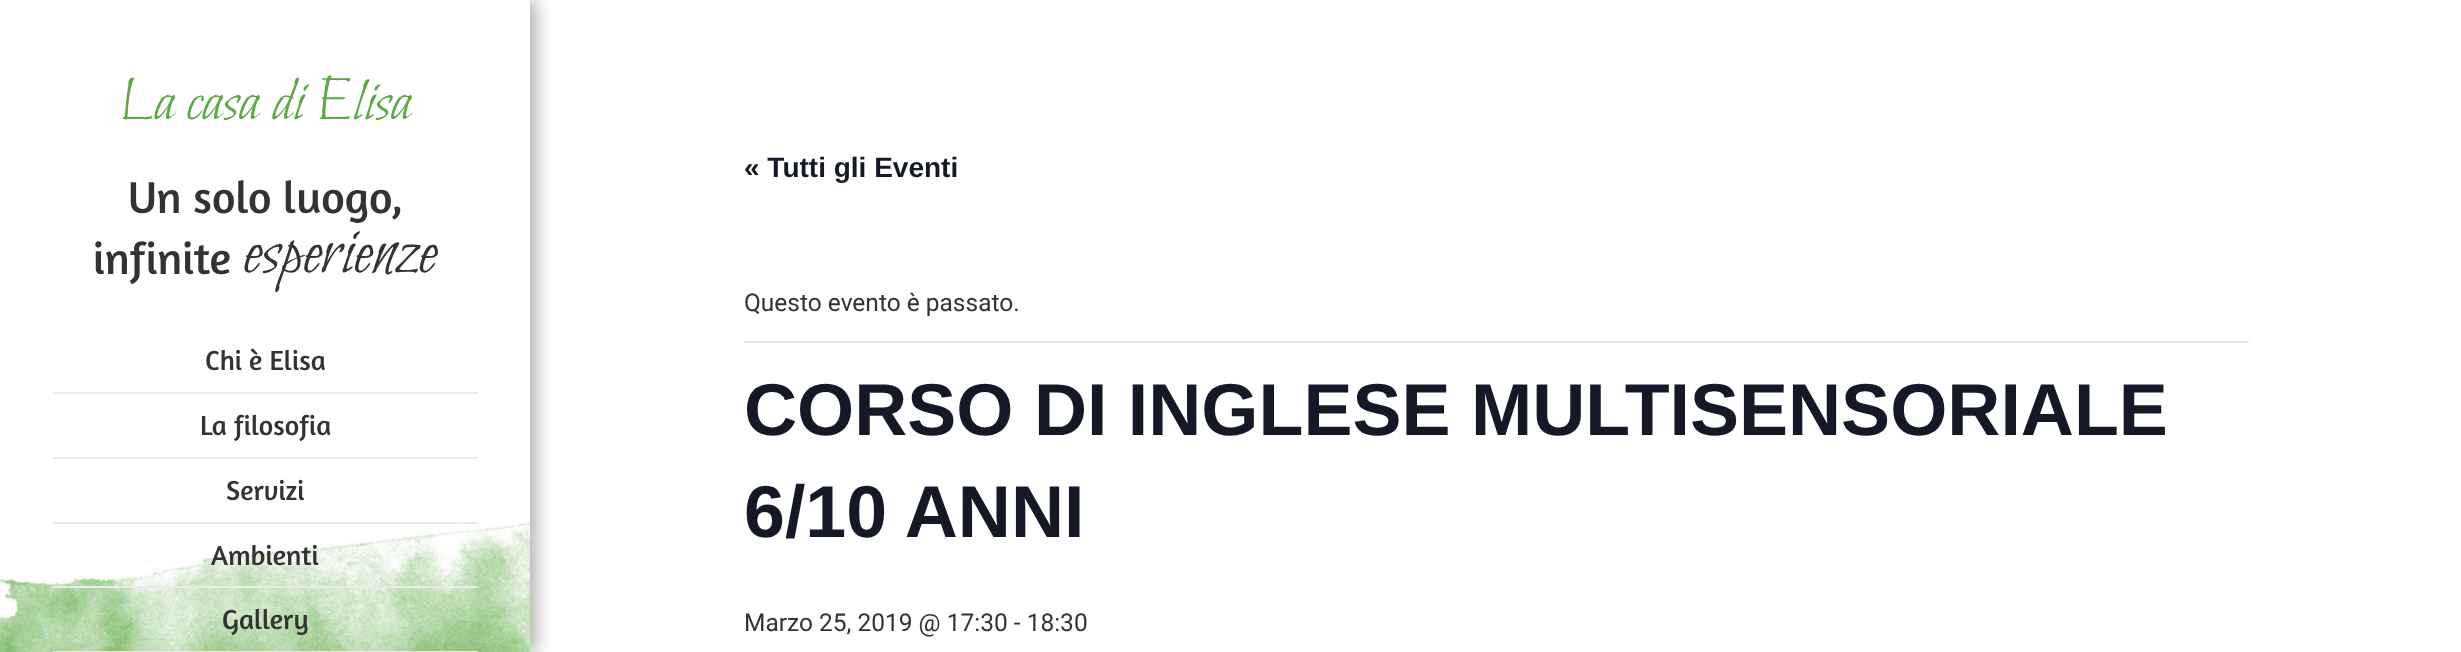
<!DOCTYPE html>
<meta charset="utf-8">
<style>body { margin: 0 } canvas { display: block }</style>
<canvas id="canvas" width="2461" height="652"></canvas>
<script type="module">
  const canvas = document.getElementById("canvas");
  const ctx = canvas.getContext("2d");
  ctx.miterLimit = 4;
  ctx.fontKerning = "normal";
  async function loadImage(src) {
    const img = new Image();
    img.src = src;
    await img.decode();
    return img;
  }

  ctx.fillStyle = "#ffffff";
  ctx.fillRect(0, 0, 2461, 652);
  ctx.save();
  ctx.beginPath();
  ctx.rect(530, 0, 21, 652);
  ctx.clip();
  ctx.fillStyle = "rgba(50, 50, 50, 0.4)";
  ctx.filter = "blur(9px)";
  ctx.beginPath();
  ctx.rect(5, 0, 531, 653);
  ctx.fill();
  ctx.filter = "none";
  ctx.restore();
  ctx.drawImage(await loadImage("img1.png"), 0, 519, 530, 133);
  ctx.font = "63px Bilbo";
  ctx.fillStyle = "#5ca845";
  ctx.fillText("La casa di Elisa", 119, 119);
  ctx.font = "45.5px Amaranth";
  ctx.fillStyle = "#333333";
  ctx.fillText("Un solo luogo,", 128, 213);
  ctx.fillText("infinite", 93, 274);
  ctx.font = "73.5px Bilbo";
  ctx.fillText("esperienze", 243, 272);
  ctx.fillStyle = "#eaeaea";
  ctx.fillRect(53, 392, 425, 2);
  ctx.font = "28px Amaranth";
  ctx.fillStyle = "#333333";
  ctx.fillText("Chi è Elisa", 205, 370);
  ctx.fillStyle = "#eaeaea";
  ctx.fillRect(53, 457, 425, 2);
  ctx.fillStyle = "#333333";
  ctx.fillText("La filosofia", 200, 435);
  ctx.fillStyle = "#eaeaea";
  ctx.fillRect(53, 522, 425, 2);
  ctx.fillStyle = "#333333";
  ctx.fillText("Servizi", 226, 500);
  ctx.fillStyle = "#eaeaea";
  ctx.fillRect(53, 586, 425, 2);
  ctx.fillStyle = "#333333";
  ctx.fillText("Ambienti", 211, 565);
  ctx.fillStyle = "#eaeaea";
  ctx.fillRect(53, 651, 425, 1);
  ctx.fillStyle = "#333333";
  ctx.fillText("Gallery", 222, 629);
  ctx.font = "bold 28px Liberation Sans";
  ctx.fillStyle = "#141827";
  ctx.fillText("« Tutti gli Eventi", 744, 177);
  ctx.fillStyle = "#e4e4e4";
  ctx.fillRect(744, 341, 1505, 2);
  ctx.font = "24.5px Roboto";
  ctx.fillStyle = "#333333";
  ctx.fillText("Questo evento è passato.", 744, 311);
  ctx.font = "bold 73.5px Liberation Sans";
  ctx.fillStyle = "#141827";
  ctx.fillText("CORSO DI INGLESE MULTISENSORIALE", 744, 435);
  ctx.fillText("6/10 ANNI", 744, 537);
  ctx.font = "24.5px Roboto";
  ctx.fillStyle = "#333333";
  ctx.fillText("Marzo 25, 2019 @ 17:30 - 18:30", 744, 631);
</script>
